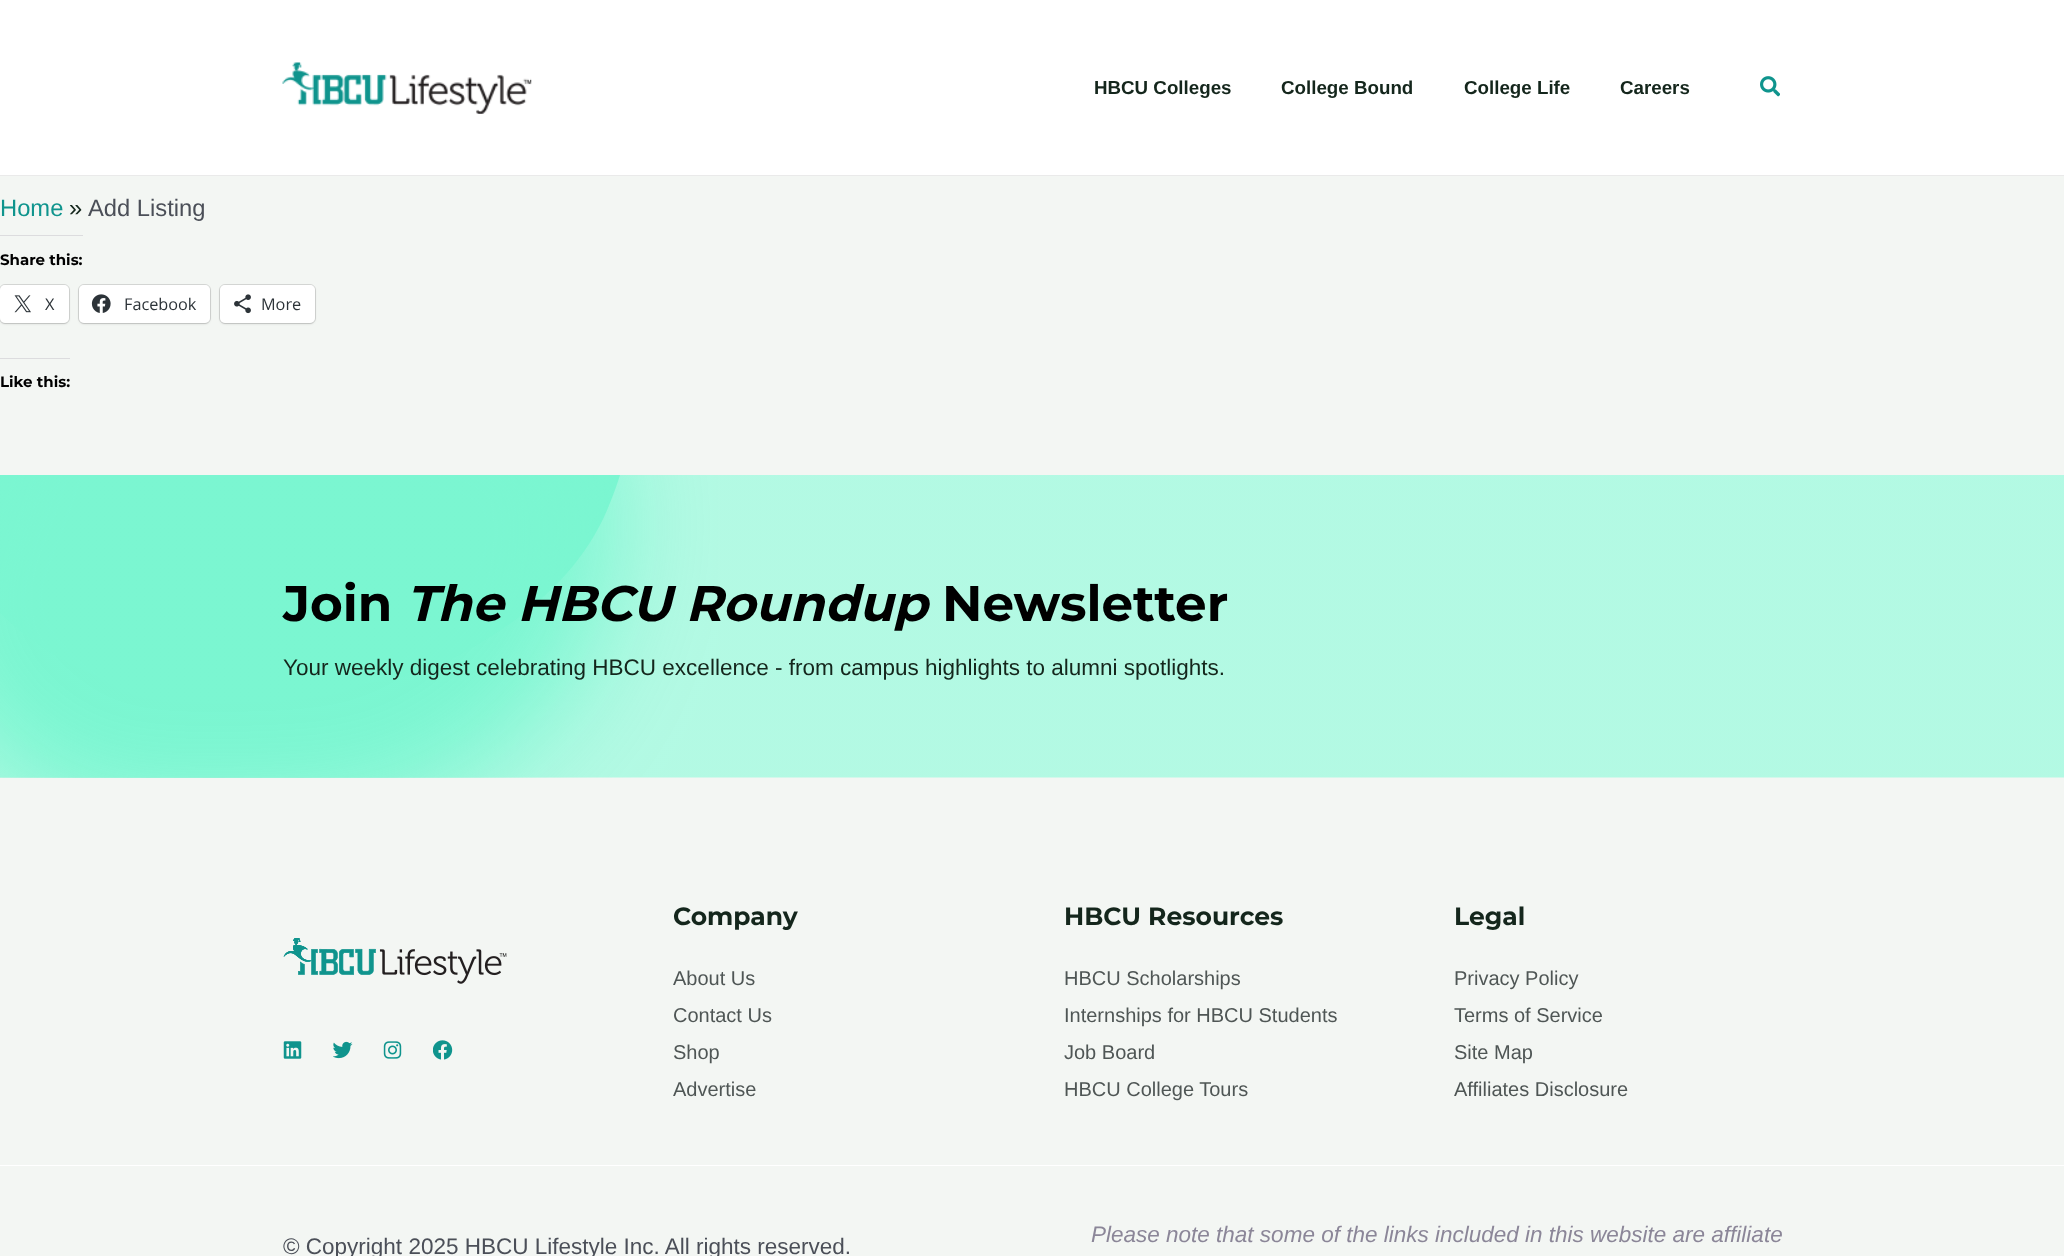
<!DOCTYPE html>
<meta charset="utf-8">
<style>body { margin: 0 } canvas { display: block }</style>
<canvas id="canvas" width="2064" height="1256"></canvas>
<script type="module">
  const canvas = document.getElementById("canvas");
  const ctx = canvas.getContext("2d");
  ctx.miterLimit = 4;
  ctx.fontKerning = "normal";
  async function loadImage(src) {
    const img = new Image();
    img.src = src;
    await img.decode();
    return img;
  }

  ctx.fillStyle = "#f3f6f3";
  ctx.fillRect(0, 0, 2064, 1256);
  ctx.fillStyle = "#ffffff";
  ctx.fillRect(0, 0, 2064, 175);
  ctx.fillStyle = "#eaeaea";
  ctx.fillRect(0, 175, 2064, 1);
  ctx.drawImage(await loadImage("img1.png"), 282, 62, 250, 52);
  ctx.font = "bold 18.75px Liberation Sans";
  ctx.fillStyle = "#14261c";
  ctx.fillText("HBCU Colleges", 1094, 94);
  ctx.fillText("College Bound", 1281, 94);
  ctx.fillText("College Life", 1464, 94);
  ctx.fillText("Careers", 1620, 94);
  ctx.drawImage(await loadImage("img2.png"), 1760, 76, 20, 21);
  ctx.font = "23.75px Liberation Sans";
  ctx.fillStyle = "#0f948d";
  ctx.fillText("Home", 0, 216);
  ctx.fillStyle = "#14261c";
  ctx.fillText("»", 69, 216);
  ctx.fillStyle = "#4b4f58";
  ctx.fillText("Add Listing", 88, 216);
  ctx.fillStyle = "#dcdcde";
  ctx.fillRect(0, 235, 83, 1);
  ctx.font = "100 15px Montserrat";
  ctx.fillStyle = "#000000";
  ctx.fillText("Share this:", 0, 265);
  ctx.beginPath();
  ctx.roundRect(-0.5, 284.5, 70, 39, 5.5);
  ctx.strokeStyle = "#d6d8d6";
  ctx.stroke();
  ctx.fillStyle = "rgba(0, 0, 0, 0.12)";
  ctx.filter = "blur(1px)";
  ctx.beginPath();
  ctx.roundRect(0, 286, 69, 38, 5);
  ctx.fill();
  ctx.filter = "none";
  ctx.fillStyle = "#ffffff";
  ctx.beginPath();
  ctx.roundRect(0, 285, 69, 38, 5);
  ctx.fill();
  ctx.drawImage(await loadImage("img3.png"), 14, 295, 17, 18);
  ctx.font = "16.25px Open Sans";
  ctx.fillStyle = "#2c3338";
  ctx.fillText("X", 45, 310);
  ctx.beginPath();
  ctx.roundRect(78.5, 284.5, 132, 39, 5.5);
  ctx.stroke();
  ctx.fillStyle = "rgba(0, 0, 0, 0.12)";
  ctx.filter = "blur(1px)";
  ctx.beginPath();
  ctx.roundRect(79, 286, 131, 38, 5);
  ctx.fill();
  ctx.filter = "none";
  ctx.fillStyle = "#ffffff";
  ctx.beginPath();
  ctx.roundRect(79, 285, 131, 38, 5);
  ctx.fill();
  ctx.drawImage(await loadImage("img4.png"), 91, 294, 20, 19);
  ctx.fillStyle = "#2c3338";
  ctx.fillText("Facebook", 124, 310);
  ctx.beginPath();
  ctx.roundRect(219.5, 284.5, 96, 39, 5.5);
  ctx.stroke();
  ctx.fillStyle = "rgba(0, 0, 0, 0.12)";
  ctx.filter = "blur(1px)";
  ctx.beginPath();
  ctx.roundRect(220, 286, 95, 38, 5);
  ctx.fill();
  ctx.filter = "none";
  ctx.fillStyle = "#ffffff";
  ctx.beginPath();
  ctx.roundRect(220, 285, 95, 38, 5);
  ctx.fill();
  ctx.drawImage(await loadImage("img5.png"), 234, 294, 17, 20);
  ctx.fillStyle = "#2c3338";
  ctx.fillText("More", 261, 310);
  ctx.fillStyle = "#dcdcde";
  ctx.fillRect(0, 358, 70, 1);
  ctx.font = "100 15px Montserrat";
  ctx.fillStyle = "#000000";
  ctx.fillText("Like this:", 0, 387);
  ctx.drawImage(await loadImage("img6.png"), 0, 475, 2064, 303);
  ctx.font = "100 50px Montserrat";
  ctx.fillText("Join", 283, 621);
  ctx.font = "italic 100 50px Montserrat";
  ctx.fillText("The HBCU Roundup", 406, 621);
  ctx.font = "100 50px Montserrat";
  ctx.fillText("Newsletter", 942, 621);
  ctx.font = "22.5px Liberation Sans";
  ctx.fillStyle = "#14261c";
  ctx.fillText("Your weekly digest celebrating HBCU excellence - from campus highlights to alumni spotlights.", 283, 675);
  ctx.drawImage(await loadImage("img7.png"), 283, 938, 224, 46);
  ctx.drawImage(await loadImage("img8.png"), 283, 1041, 19, 18);
  ctx.drawImage(await loadImage("img9.png"), 333, 1041, 20, 18);
  ctx.drawImage(await loadImage("img10.png"), 383, 1041, 19, 18);
  ctx.drawImage(await loadImage("img11.png"), 433, 1040, 20, 20);
  ctx.font = "100 25px Montserrat";
  ctx.fillText("Company", 673, 925);
  ctx.font = "20px Liberation Sans";
  ctx.fillStyle = "#4f5655";
  ctx.fillText("About Us", 673, 985);
  ctx.fillText("Contact Us", 673, 1022);
  ctx.fillText("Shop", 673, 1059);
  ctx.fillText("Advertise", 673, 1096);
  ctx.font = "100 25px Montserrat";
  ctx.fillStyle = "#14261c";
  ctx.fillText("HBCU Resources", 1064, 925);
  ctx.font = "20px Liberation Sans";
  ctx.fillStyle = "#4f5655";
  ctx.fillText("HBCU Scholarships", 1064, 985);
  ctx.fillText("Internships for HBCU Students", 1064, 1022);
  ctx.fillText("Job Board", 1064, 1059);
  ctx.fillText("HBCU College Tours", 1064, 1096);
  ctx.font = "100 25px Montserrat";
  ctx.fillStyle = "#14261c";
  ctx.fillText("Legal", 1454, 925);
  ctx.font = "20px Liberation Sans";
  ctx.fillStyle = "#4f5655";
  ctx.fillText("Privacy Policy", 1454, 985);
  ctx.fillText("Terms of Service", 1454, 1022);
  ctx.fillText("Site Map", 1454, 1059);
  ctx.fillText("Affiliates Disclosure", 1454, 1096);
  ctx.fillStyle = "#ffffff";
  ctx.fillRect(0, 1165, 2064, 1);
  ctx.font = "italic 22.5px Liberation Sans";
  ctx.fillStyle = "#8b8698";
  ctx.fillText("Please note that some of the links included in this website are affiliate", 1091, 1242);
  ctx.font = "22.5px Liberation Sans";
  ctx.fillStyle = "#4b4f58";
  ctx.fillText("© Copyright 2025 HBCU Lifestyle Inc. All rights reserved.", 283, 1254);
</script>
